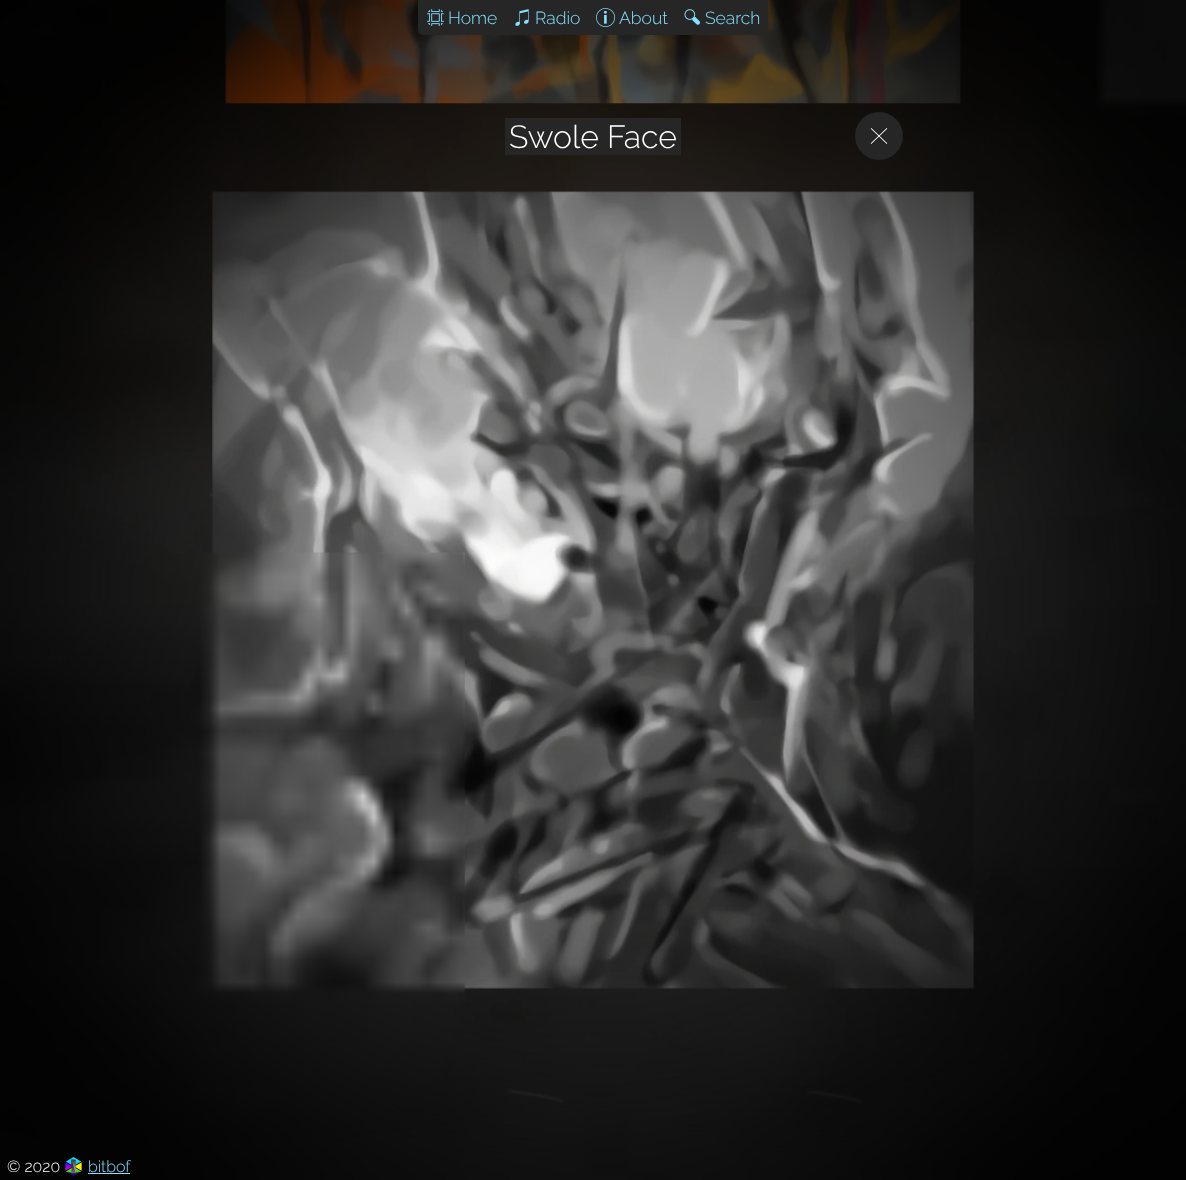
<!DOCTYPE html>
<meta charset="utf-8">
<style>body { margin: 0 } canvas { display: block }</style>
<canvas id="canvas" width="1186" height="1180"></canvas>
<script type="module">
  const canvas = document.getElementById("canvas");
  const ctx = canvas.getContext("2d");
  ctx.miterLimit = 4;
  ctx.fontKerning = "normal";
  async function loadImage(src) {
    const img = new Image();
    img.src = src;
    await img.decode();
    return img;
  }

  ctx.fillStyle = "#ffffff";
  ctx.fillRect(0, 0, 1186, 1180);
  ctx.drawImage(await loadImage("img1.png"), 0, 0, 1186, 1180);
  ctx.fillStyle = "#262626";
  ctx.beginPath();
  ctx.roundRect(418, 0, 350, 35, [0, 0, 5, 5]);
  ctx.fill();
  ctx.drawImage(await loadImage("img2.png"), 427, 9, 17, 17);
  ctx.font = "300 17.5px Raleway";
  ctx.fillStyle = "#84e1ff";
  ctx.fillText("Home", 448, 24);
  ctx.drawImage(await loadImage("img3.png"), 515, 9, 14, 17);
  ctx.fillText("Radio", 535, 24);
  ctx.drawImage(await loadImage("img4.png"), 596, 8, 19, 19);
  ctx.fillText("About", 619, 24);
  ctx.drawImage(await loadImage("img5.png"), 684, 9, 16, 16);
  ctx.fillText("Search", 705, 24);
  ctx.fillStyle = "#262626";
  ctx.fillRect(505, 118, 176, 37);
  ctx.font = "300 32px Raleway";
  ctx.fillStyle = "#ffffff";
  ctx.fillText("Swole Face", 509, 148);
  ctx.fillStyle = "#262626";
  ctx.beginPath();
  ctx.arc(879, 136, 24, 0, Math.PI * 2);
  ctx.fill();
  ctx.drawImage(await loadImage("img6.png"), 870, 128, 18, 16);
  ctx.font = "300 16px Raleway";
  ctx.fillStyle = "#ffffff";
  ctx.fillText("© 2020", 7, 1172);
  ctx.drawImage(await loadImage("img7.png"), 65, 1157, 17, 19);
  ctx.fillStyle = "#84e1ff";
  ctx.fillText("bitbof", 88, 1172);
  ctx.fillRect(88, 1173, 42, 1);
</script>
